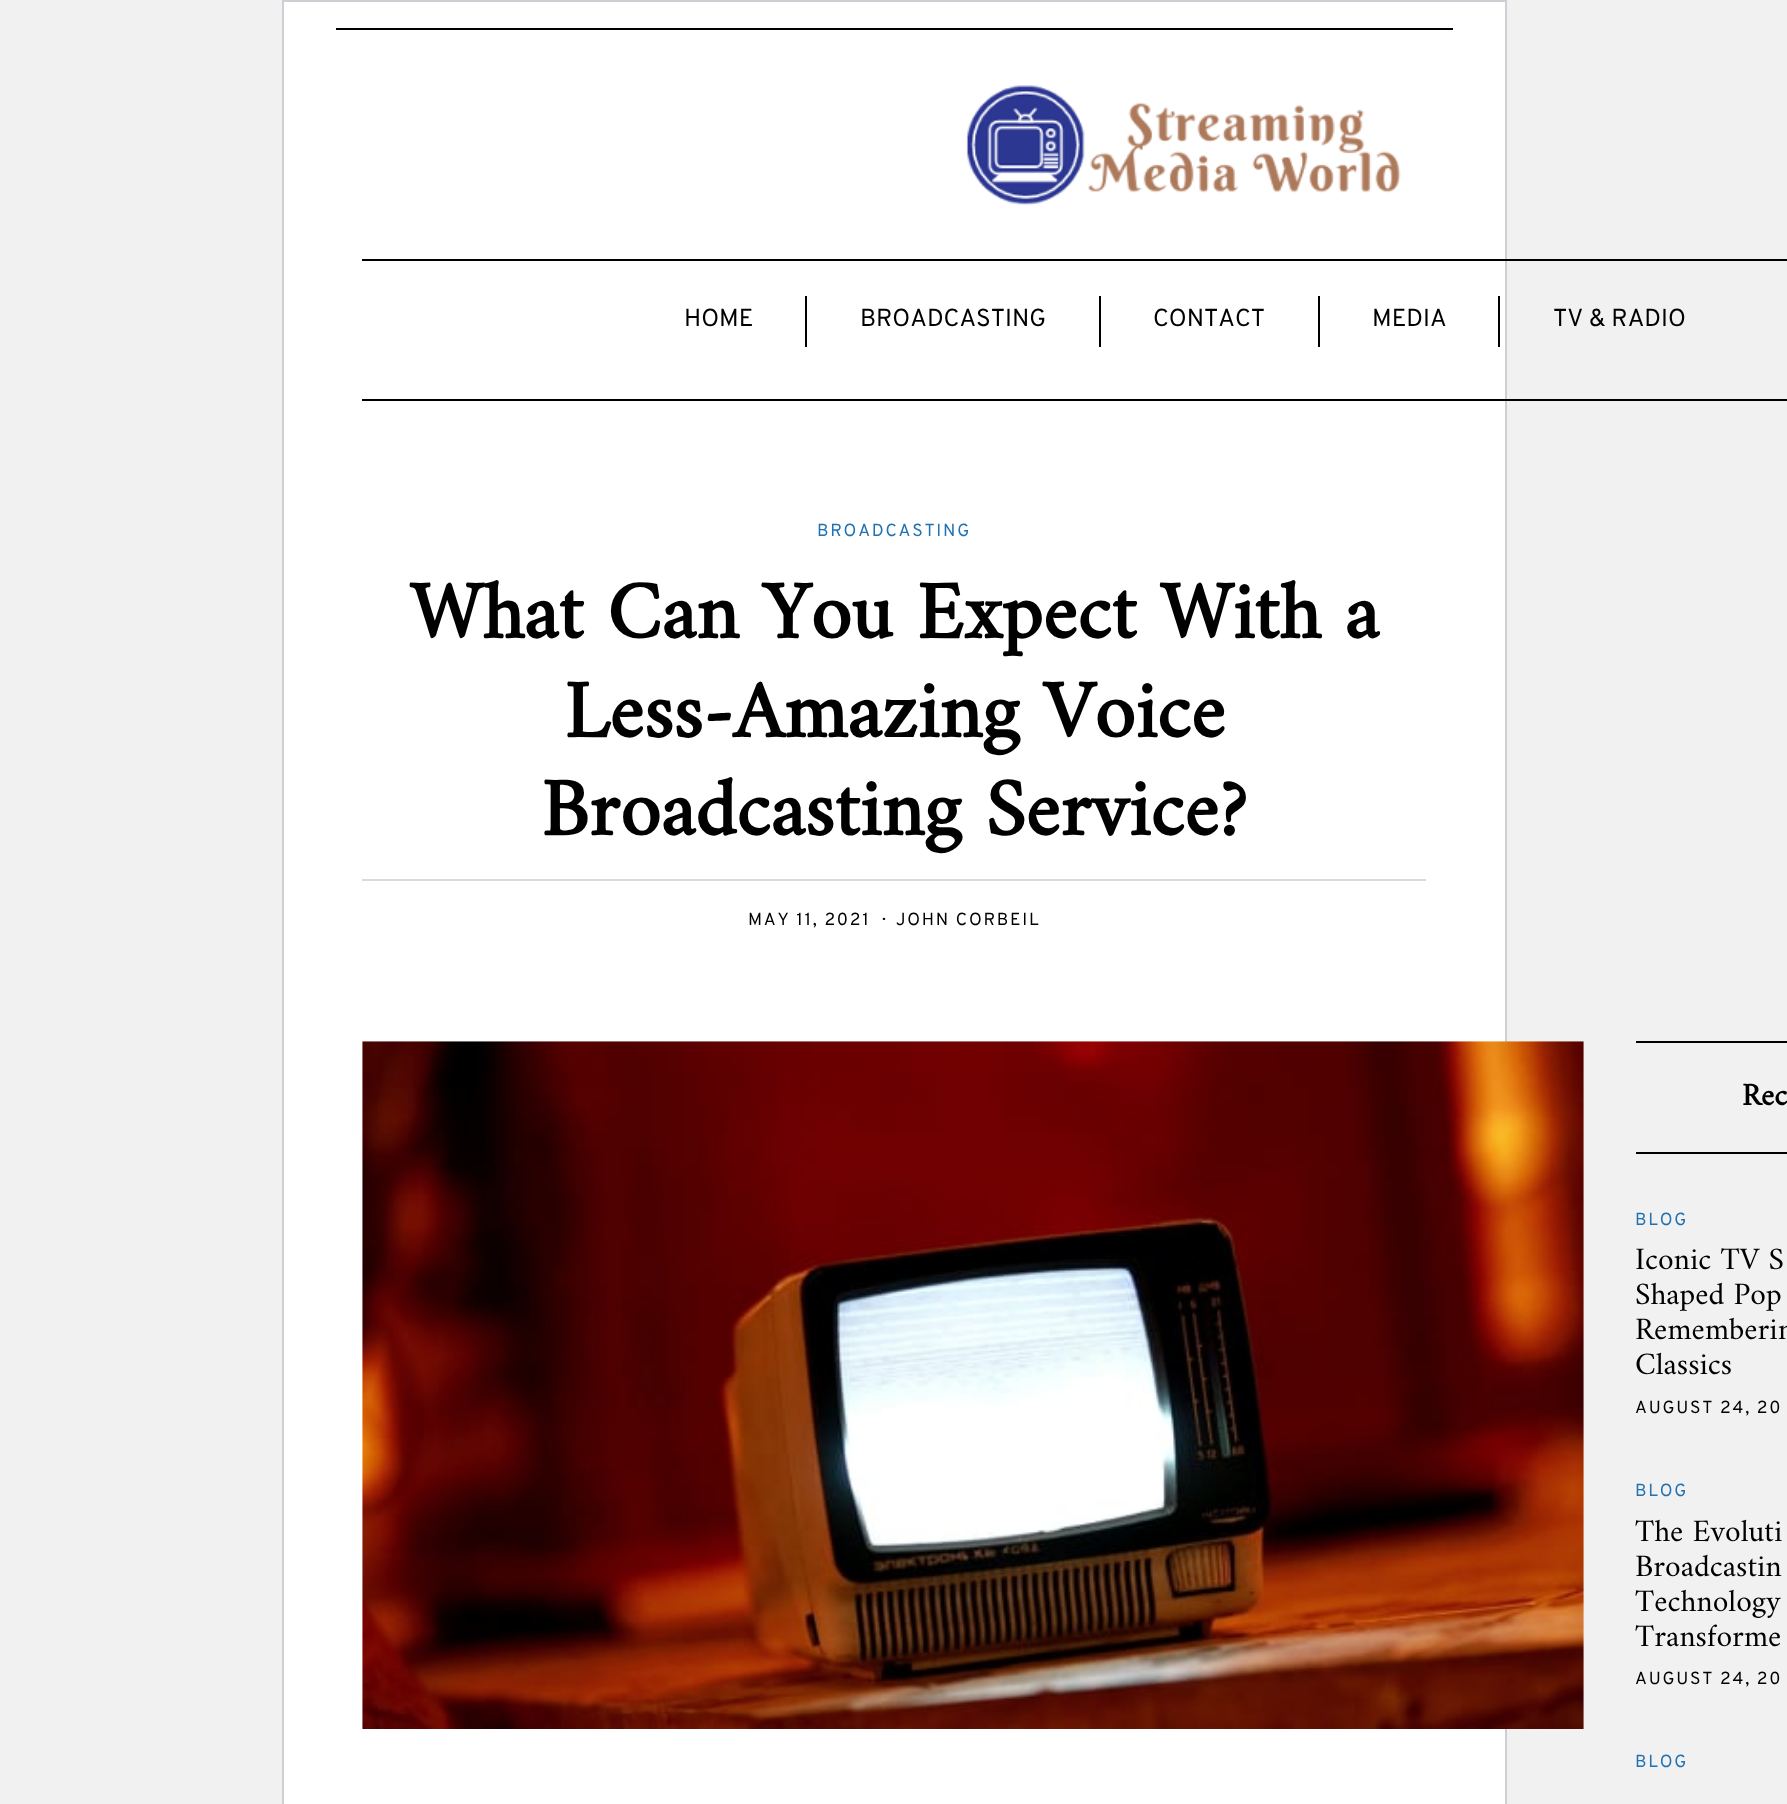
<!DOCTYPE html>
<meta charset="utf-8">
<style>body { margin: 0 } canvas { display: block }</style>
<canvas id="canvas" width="1787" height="1804"></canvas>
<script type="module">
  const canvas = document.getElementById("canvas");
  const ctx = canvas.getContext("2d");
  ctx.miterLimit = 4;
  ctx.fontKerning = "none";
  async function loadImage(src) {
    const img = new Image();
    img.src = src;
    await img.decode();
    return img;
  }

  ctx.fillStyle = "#f1f1f1";
  ctx.fillRect(0, 0, 1787, 1804);
  ctx.fillStyle = "#ffffff";
  ctx.beginPath();
  ctx.rect(283, 1, 1223, 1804);
  ctx.fill();
  ctx.strokeStyle = "#ccd0d4";
  ctx.lineWidth = 2;
  ctx.stroke();
  ctx.fillStyle = "#000000";
  ctx.fillRect(336, 28, 1117, 2);
  ctx.drawImage(await loadImage("img1.png"), 966, 85, 435, 121);
  ctx.fillRect(362, 259, 1425, 2);
  ctx.fillRect(362, 399, 1425, 2);
  ctx.fillRect(805, 296, 2, 51);
  ctx.font = "24.5px Overpass";
  ctx.fillText("HOME", 684, 326);
  ctx.fillRect(1099, 296, 2, 51);
  ctx.fillText("BROADCASTING", 860, 326);
  ctx.fillRect(1318, 296, 2, 51);
  ctx.fillText("CONTACT", 1153, 326);
  ctx.fillRect(1498, 296, 2, 51);
  ctx.fillText("MEDIA", 1372, 326);
  ctx.fillText("TV & RADIO", 1553, 326);
  ctx.letterSpacing = "1.75px";
  ctx.font = "17.5px Overpass";
  ctx.fillStyle = "#2271b1";
  ctx.fillText("BROADCASTING", 817, 536);
  ctx.fillStyle = "#dadada";
  ctx.fillRect(362, 879, 1064, 2);
  ctx.letterSpacing = "0px";
  ctx.font = "bold 82.25px Amiri";
  ctx.fillStyle = "#000000";
  ctx.fillText("What Can You Expect With a", 410, 638);
  ctx.fillText("Less-Amazing Voice", 564, 737);
  ctx.fillText("Broadcasting Service?", 541, 835);
  ctx.letterSpacing = "1.75px";
  ctx.font = "17.5px Overpass";
  ctx.fillText("MAY 11, 2021", 748, 925);
  ctx.fillText("·", 882, 925);
  ctx.fillText("JOHN CORBEIL", 896, 925);
  ctx.drawImage(await loadImage("img2.png"), 362, 1041, 1222, 688);
  ctx.fillRect(1636, 1041, 151, 2);
  ctx.fillRect(1636, 1152, 151, 2);
  ctx.letterSpacing = "0px";
  ctx.font = "bold 31.5px Amiri";
  ctx.fillText("Rec", 1742, 1105);
  ctx.letterSpacing = "1.75px";
  ctx.font = "17.5px Overpass";
  ctx.fillStyle = "#2271b1";
  ctx.fillText("BLOG", 1635, 1225);
  ctx.letterSpacing = "0px";
  ctx.font = "31.5px Amiri";
  ctx.fillStyle = "#000000";
  ctx.fillText("Iconic TV S", 1635, 1269);
  ctx.fillText("Shaped Pop", 1635, 1304);
  ctx.fillText("Rememberin", 1635, 1339);
  ctx.fillText("Classics", 1635, 1374);
  ctx.letterSpacing = "1.75px";
  ctx.font = "17.5px Overpass";
  ctx.fillText("AUGUST 24, 20", 1635, 1413);
  ctx.fillStyle = "#2271b1";
  ctx.fillText("BLOG", 1635, 1496);
  ctx.letterSpacing = "0px";
  ctx.font = "31.5px Amiri";
  ctx.fillStyle = "#000000";
  ctx.fillText("The Evoluti", 1635, 1541);
  ctx.fillText("Broadcastin", 1635, 1576);
  ctx.fillText("Technology", 1635, 1611);
  ctx.fillText("Transforme", 1635, 1646);
  ctx.letterSpacing = "1.75px";
  ctx.font = "17.5px Overpass";
  ctx.fillText("AUGUST 24, 20", 1635, 1684);
  ctx.fillStyle = "#2271b1";
  ctx.fillText("BLOG", 1635, 1767);
</script>
